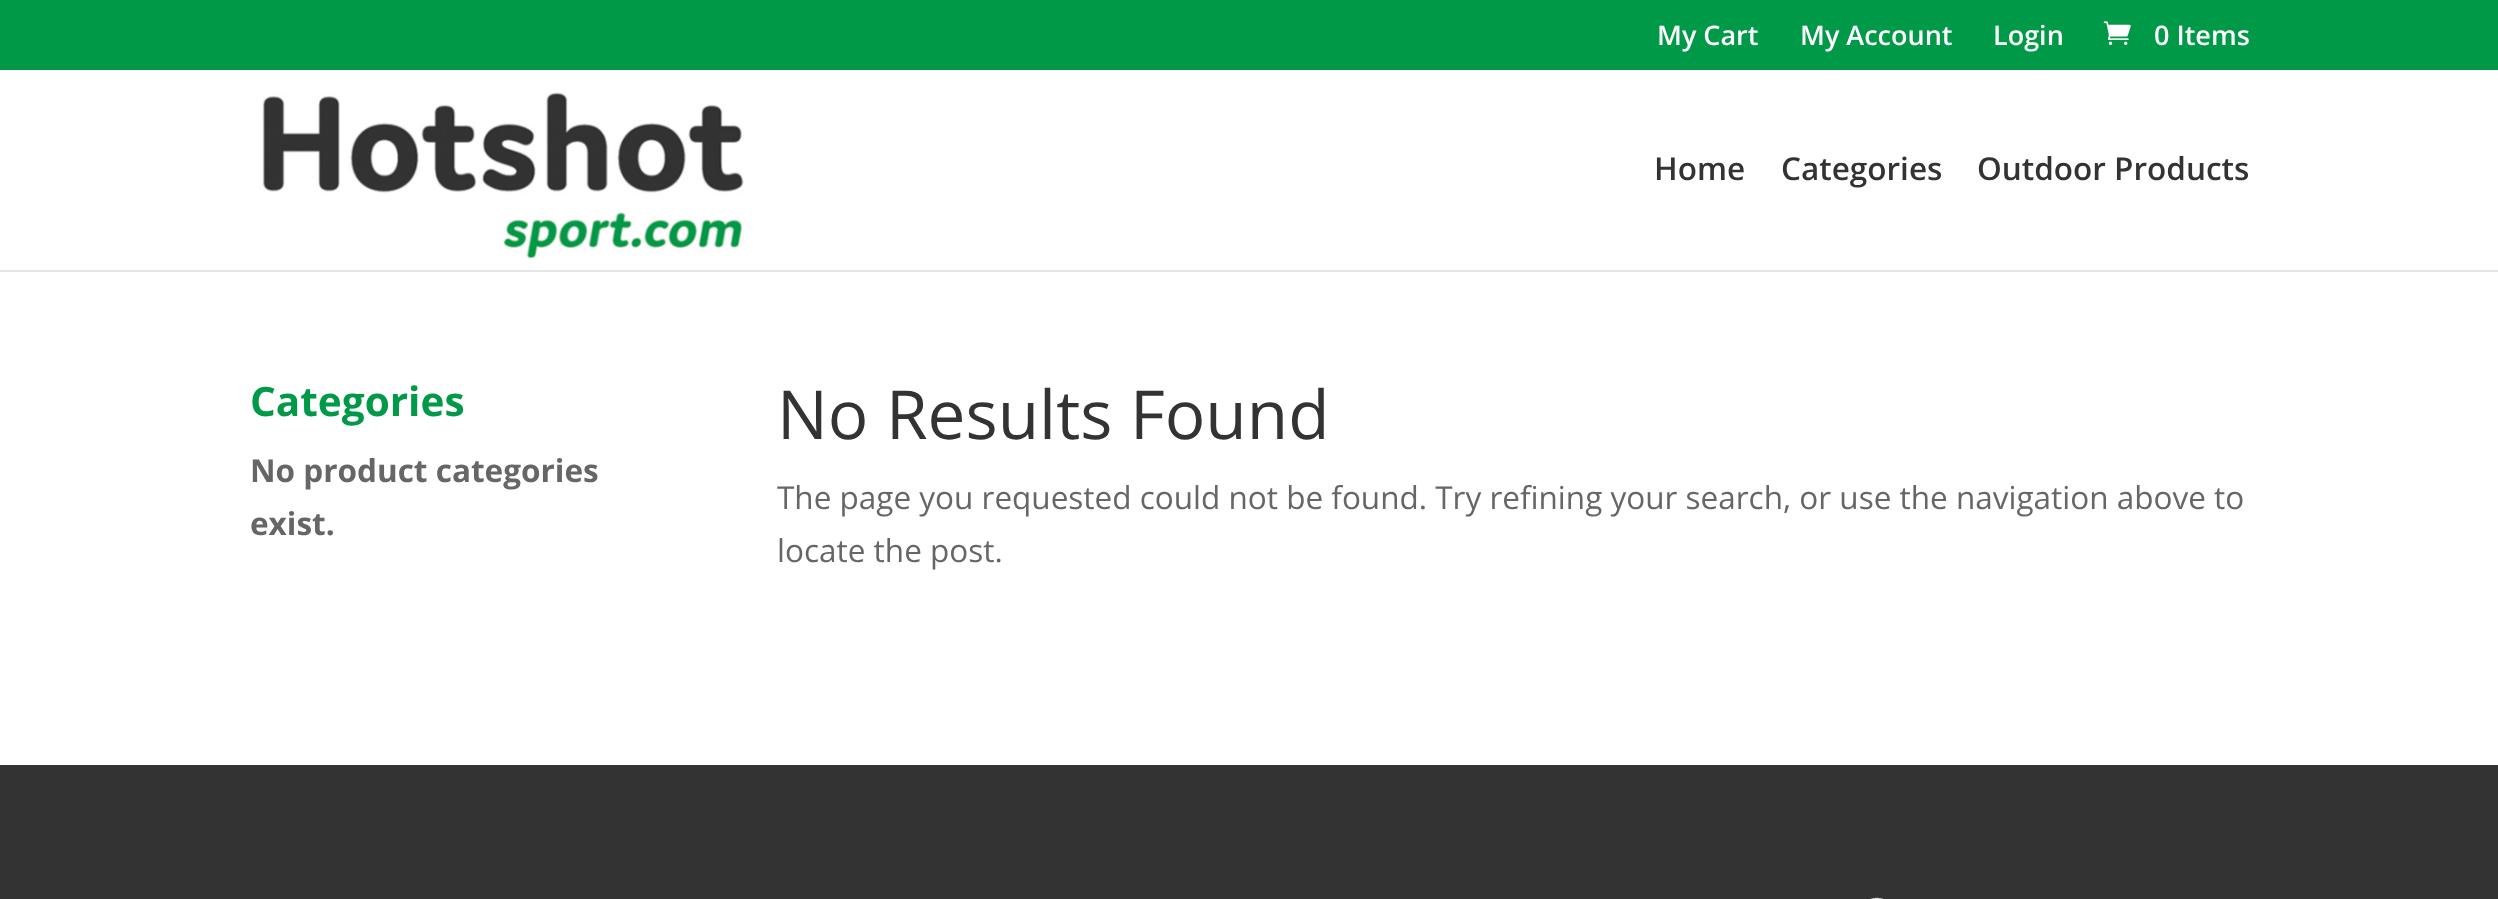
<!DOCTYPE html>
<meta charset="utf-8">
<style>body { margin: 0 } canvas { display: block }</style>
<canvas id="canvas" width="2498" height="899"></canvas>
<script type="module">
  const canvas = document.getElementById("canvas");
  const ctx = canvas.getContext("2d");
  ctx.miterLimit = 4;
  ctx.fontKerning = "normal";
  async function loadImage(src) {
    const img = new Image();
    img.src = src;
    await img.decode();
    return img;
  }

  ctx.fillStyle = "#ffffff";
  ctx.fillRect(0, 0, 2498, 899);
  ctx.fillStyle = "#009947";
  ctx.fillRect(0, 0, 2498, 70);
  ctx.font = "600 27px Open Sans";
  ctx.fillStyle = "#ffffff";
  ctx.fillText("My Cart", 1657, 45);
  ctx.fillText("My Account", 1800, 45);
  ctx.fillText("Login", 1993, 45);
  ctx.drawImage(await loadImage("img1.png"), 2103, 21, 28, 24);
  ctx.fillText("0 Items", 2154, 45);
  ctx.fillStyle = "#e6e6e6";
  ctx.beginPath();
  ctx.moveTo(0, 270);
  ctx.lineTo(0, 272);
  ctx.lineTo(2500, 272);
  ctx.lineTo(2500, 70);
  ctx.lineTo(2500, 270);
  ctx.closePath();
  ctx.fill();
  ctx.drawImage(await loadImage("img2.png"), 262, 92, 482, 167);
  ctx.font = "600 31.5px Open Sans";
  ctx.fillStyle = "#333333";
  ctx.fillText("Home", 1654, 180);
  ctx.fillText("Categories", 1781, 180);
  ctx.fillText("Outdoor Products", 1977, 180);
  ctx.font = "bold 40.5px Open Sans";
  ctx.fillStyle = "#009947";
  ctx.fillText("Categories", 250, 416);
  ctx.font = "bold 31.5px Open Sans";
  ctx.fillStyle = "#666666";
  ctx.fillText("No product categories", 250, 482);
  ctx.fillText("exist.", 250, 535);
  ctx.font = "67.5px Open Sans";
  ctx.fillStyle = "#333333";
  ctx.fillText("No Results Found", 777, 439);
  ctx.font = "31.5px Open Sans";
  ctx.fillStyle = "#666666";
  ctx.fillText("The page you requested could not be found. Try refining your search, or use the navigation above to", 777, 509);
  ctx.fillText("locate the post.", 777, 562);
  ctx.fillStyle = "#333333";
  ctx.fillRect(0, 765, 2498, 134);
  ctx.drawImage(await loadImage("img3.png"), 1870, 897, 14, 2);
</script>
